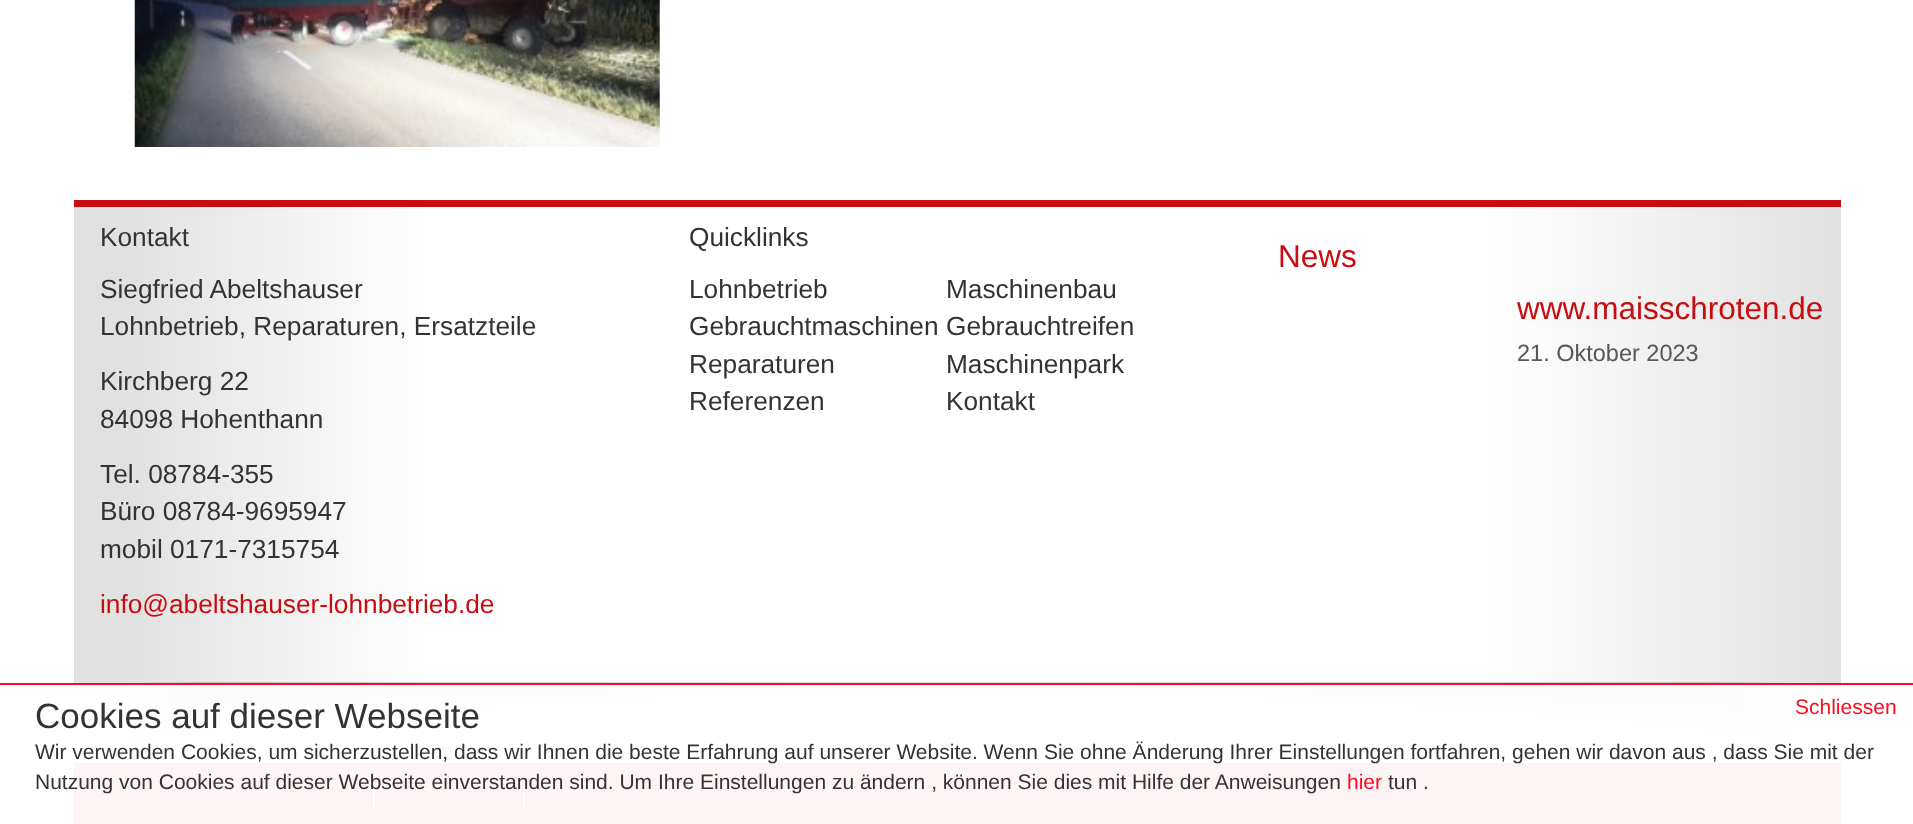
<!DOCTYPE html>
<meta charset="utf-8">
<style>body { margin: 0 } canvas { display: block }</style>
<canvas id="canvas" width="1913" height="824"></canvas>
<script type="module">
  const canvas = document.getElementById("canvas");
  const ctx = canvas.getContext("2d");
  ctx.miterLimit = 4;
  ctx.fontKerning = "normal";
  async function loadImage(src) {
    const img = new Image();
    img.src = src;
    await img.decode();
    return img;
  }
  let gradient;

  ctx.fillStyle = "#ffffff";
  ctx.fillRect(0, 0, 1913, 824);
  ctx.drawImage(await loadImage("img1.png"), 134, 0, 526, 147);
  gradient = ctx.createLinearGradient(74, 445, 1841, 444);
  gradient.addColorStop(0.03, "#e1e1e1");
  gradient.addColorStop(0.2, "#ffffff");
  gradient.addColorStop(0.8, "#ffffff");
  gradient.addColorStop(1, "#e1e1e1");
  ctx.fillStyle = gradient;
  ctx.fillRect(74, 207, 1767, 476);
  ctx.fillStyle = "#c80c0f";
  ctx.fillRect(74, 200, 1767, 7);
  ctx.font = "26.25px Liberation Sans";
  ctx.fillStyle = "#333333";
  ctx.fillText("Kontakt", 100, 246);
  ctx.fillText("Siegfried Abeltshauser", 100, 298);
  ctx.fillText("Lohnbetrieb, Reparaturen, Ersatzteile", 100, 335);
  ctx.fillText("Kirchberg 22", 100, 390);
  ctx.fillText("84098 Hohenthann", 100, 428);
  ctx.fillText("Tel. 08784-355", 100, 483);
  ctx.fillText("Büro 08784-9695947", 100, 520);
  ctx.fillText("mobil 0171-7315754", 100, 558);
  ctx.fillStyle = "#c80c0f";
  ctx.fillText("info@abeltshauser-lohnbetrieb.de", 100, 613);
  ctx.fillStyle = "#333333";
  ctx.fillText("Quicklinks", 689, 246);
  ctx.fillText("Lohnbetrieb", 689, 298);
  ctx.fillText("Maschinenbau", 946, 298);
  ctx.fillText("Gebrauchtmaschinen", 689, 335);
  ctx.fillText("Gebrauchtreifen", 946, 335);
  ctx.fillText("Reparaturen", 689, 373);
  ctx.fillText("Maschinenpark", 946, 373);
  ctx.fillText("Referenzen", 689, 410);
  ctx.fillText("Kontakt", 946, 410);
  ctx.font = "31.5px Liberation Sans";
  ctx.fillStyle = "#c80c0f";
  ctx.fillText("News", 1278, 267);
  ctx.fillText("www.maisschroten.de", 1517, 319);
  ctx.font = "23.5px Liberation Sans";
  ctx.fillStyle = "#575756";
  ctx.fillText("21. Oktober 2023", 1517, 361);
  ctx.drawImage(await loadImage("img2.png"), 109, 682, 1697, 75);
  ctx.fillStyle = "#fdf5f5";
  ctx.fillRect(74, 763, 1767, 61);
  ctx.fillStyle = "#ffffff";
  ctx.fillRect(373, 781, 2, 26);
  ctx.fillRect(523, 781, 2, 26);
  ctx.fillStyle = "#ff0a1f";
  ctx.fillRect(0, 683, 1913, 2);
  ctx.font = "21px Liberation Sans";
  ctx.fillText("Schliessen", 1795, 714);
  ctx.font = "35px Liberation Sans";
  ctx.fillStyle = "#333333";
  ctx.fillText("Cookies auf dieser Webseite", 35, 728);
  ctx.font = "21px Liberation Sans";
  ctx.fillText("Wir verwenden Cookies, um sicherzustellen, dass wir Ihnen die beste Erfahrung auf unserer Website. Wenn Sie ohne Änderung Ihrer Einstellungen fortfahren, gehen wir davon aus , dass Sie mit der", 35, 759);
  ctx.fillText("Nutzung von Cookies auf dieser Webseite einverstanden sind. Um Ihre Einstellungen zu ändern , können Sie dies mit Hilfe der Anweisungen", 35, 789);
  ctx.fillStyle = "#ff0a1f";
  ctx.fillText("hier", 1347, 789);
  ctx.fillStyle = "#333333";
  ctx.fillText("tun .", 1388, 789);
</script>
